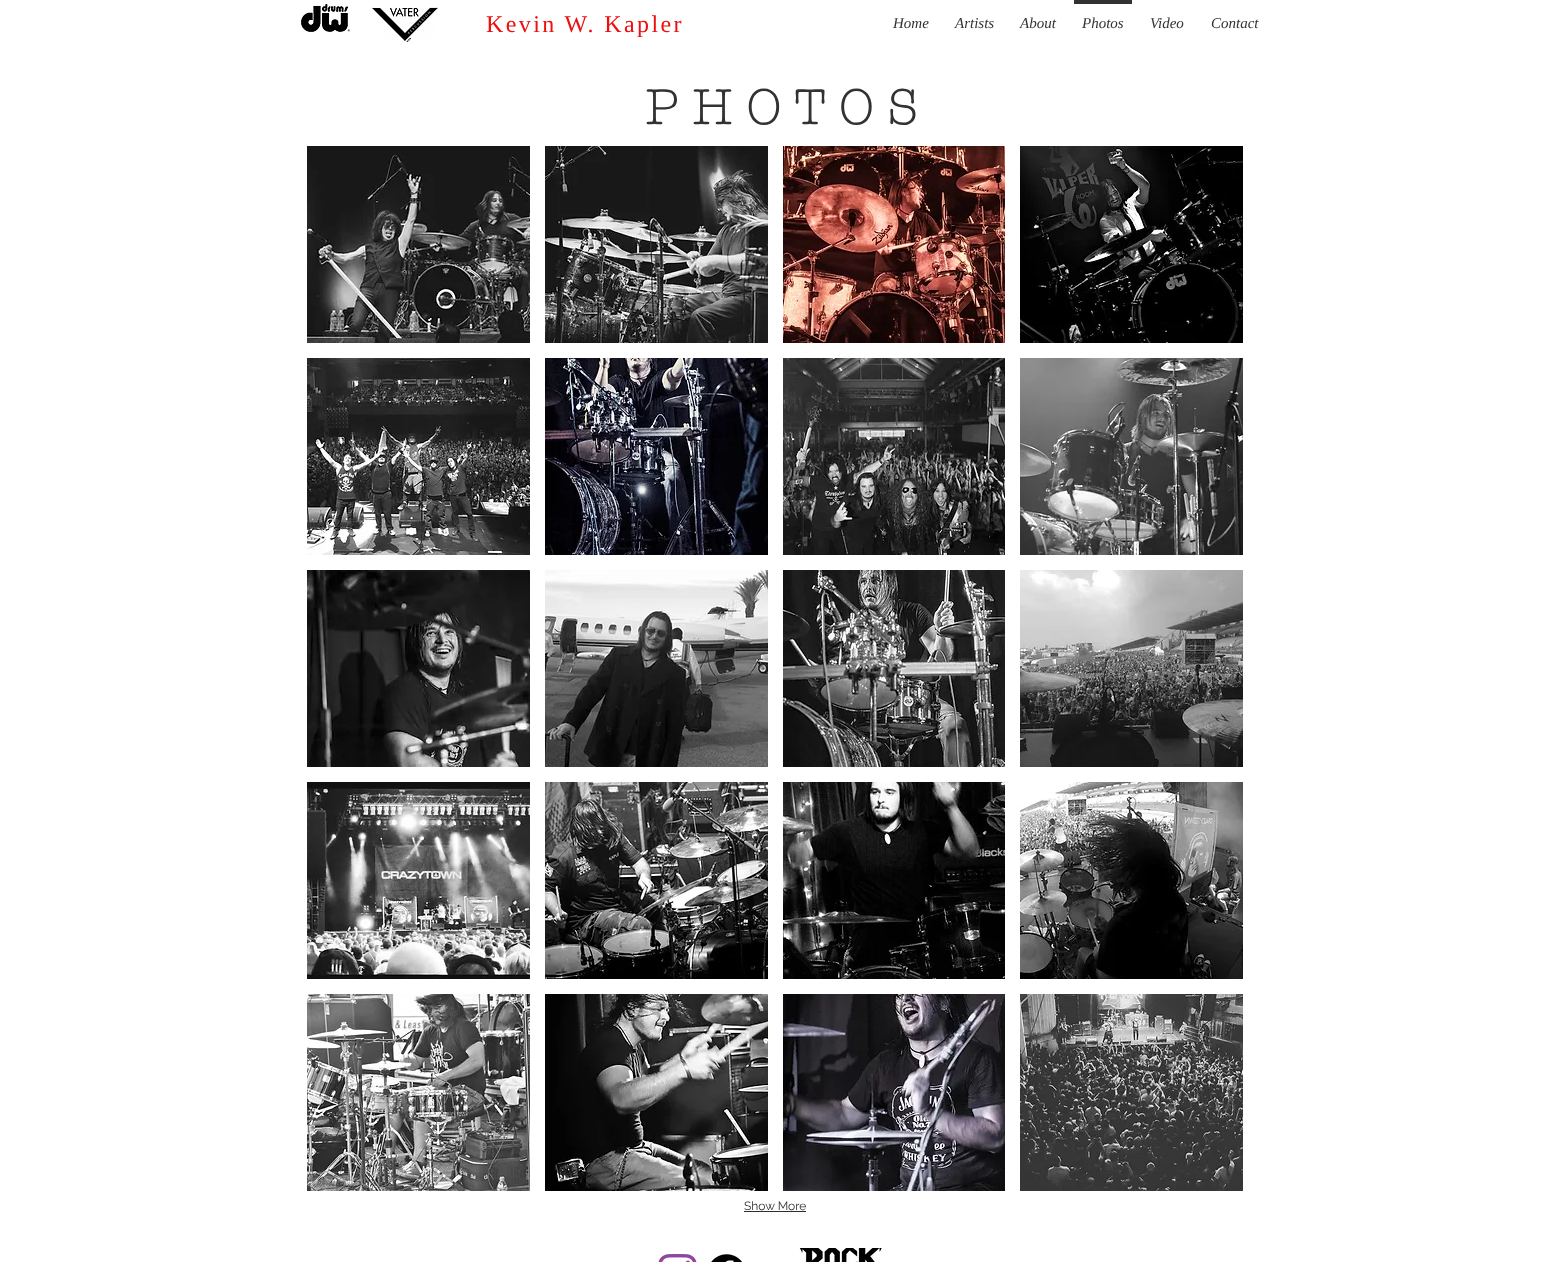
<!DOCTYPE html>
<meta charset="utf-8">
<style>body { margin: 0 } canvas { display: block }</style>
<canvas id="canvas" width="1566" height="1262"></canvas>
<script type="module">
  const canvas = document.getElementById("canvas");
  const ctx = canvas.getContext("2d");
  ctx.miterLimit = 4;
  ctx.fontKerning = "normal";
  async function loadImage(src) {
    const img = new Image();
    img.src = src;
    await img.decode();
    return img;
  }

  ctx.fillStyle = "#ffffff";
  ctx.fillRect(0, 0, 1566, 1262);
  ctx.drawImage(await loadImage("img1.png"), 301, 4, 49, 28);
  ctx.drawImage(await loadImage("img2.png"), 372, 7, 66, 36);
  ctx.letterSpacing = "2.4px";
  ctx.font = "24px Liberation Serif";
  ctx.fillStyle = "#ed0e0e";
  ctx.fillText("Kevin W. Kapler", 486, 32);
  ctx.letterSpacing = "0px";
  ctx.font = "italic 15px Liberation Serif";
  ctx.fillStyle = "#313231";
  ctx.fillText("Home", 893, 28);
  ctx.fillText("Artists", 955, 28);
  ctx.fillText("About", 1020, 28);
  ctx.fillRect(1074, 0, 58, 4);
  ctx.fillText("Photos", 1082, 28);
  ctx.fillText("Video", 1150, 28);
  ctx.fillText("Contact", 1211, 28);
  ctx.letterSpacing = "14.75px";
  ctx.font = "bold 49px 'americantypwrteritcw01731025'";
  ctx.fillText("PHOTOS", 645, 124);
  ctx.drawImage(await loadImage("img3.png"), 307, 146, 223, 197);
  ctx.drawImage(await loadImage("img4.png"), 545, 146, 223, 197);
  ctx.drawImage(await loadImage("img5.png"), 783, 146, 222, 197);
  ctx.drawImage(await loadImage("img6.png"), 1020, 146, 223, 197);
  ctx.drawImage(await loadImage("img7.png"), 307, 358, 223, 197);
  ctx.drawImage(await loadImage("img8.png"), 545, 358, 223, 197);
  ctx.drawImage(await loadImage("img9.png"), 783, 358, 222, 197);
  ctx.drawImage(await loadImage("img10.png"), 1020, 358, 223, 197);
  ctx.drawImage(await loadImage("img11.png"), 307, 570, 223, 197);
  ctx.drawImage(await loadImage("img12.png"), 545, 570, 223, 197);
  ctx.drawImage(await loadImage("img13.png"), 783, 570, 222, 197);
  ctx.drawImage(await loadImage("img14.png"), 1020, 570, 223, 197);
  ctx.drawImage(await loadImage("img15.png"), 307, 782, 223, 197);
  ctx.drawImage(await loadImage("img16.png"), 545, 782, 223, 197);
  ctx.drawImage(await loadImage("img17.png"), 783, 782, 222, 197);
  ctx.drawImage(await loadImage("img18.png"), 1020, 782, 223, 197);
  ctx.drawImage(await loadImage("img19.png"), 307, 994, 223, 197);
  ctx.drawImage(await loadImage("img20.png"), 545, 994, 223, 197);
  ctx.drawImage(await loadImage("img21.png"), 783, 994, 222, 197);
  ctx.drawImage(await loadImage("img22.png"), 1020, 994, 223, 197);
  ctx.letterSpacing = "0px";
  ctx.font = "12px Raleway";
  ctx.fillText("Show More", 744, 1210);
  ctx.fillStyle = "#2f2e2e";
  ctx.fillRect(744, 1211, 62, 1);
  ctx.drawImage(await loadImage("img23.png"), 658, 1254, 39, 8);
  ctx.drawImage(await loadImage("img24.png"), 711, 1254, 31, 8);
  ctx.drawImage(await loadImage("img25.png"), 799, 1248, 83, 14);
</script>
